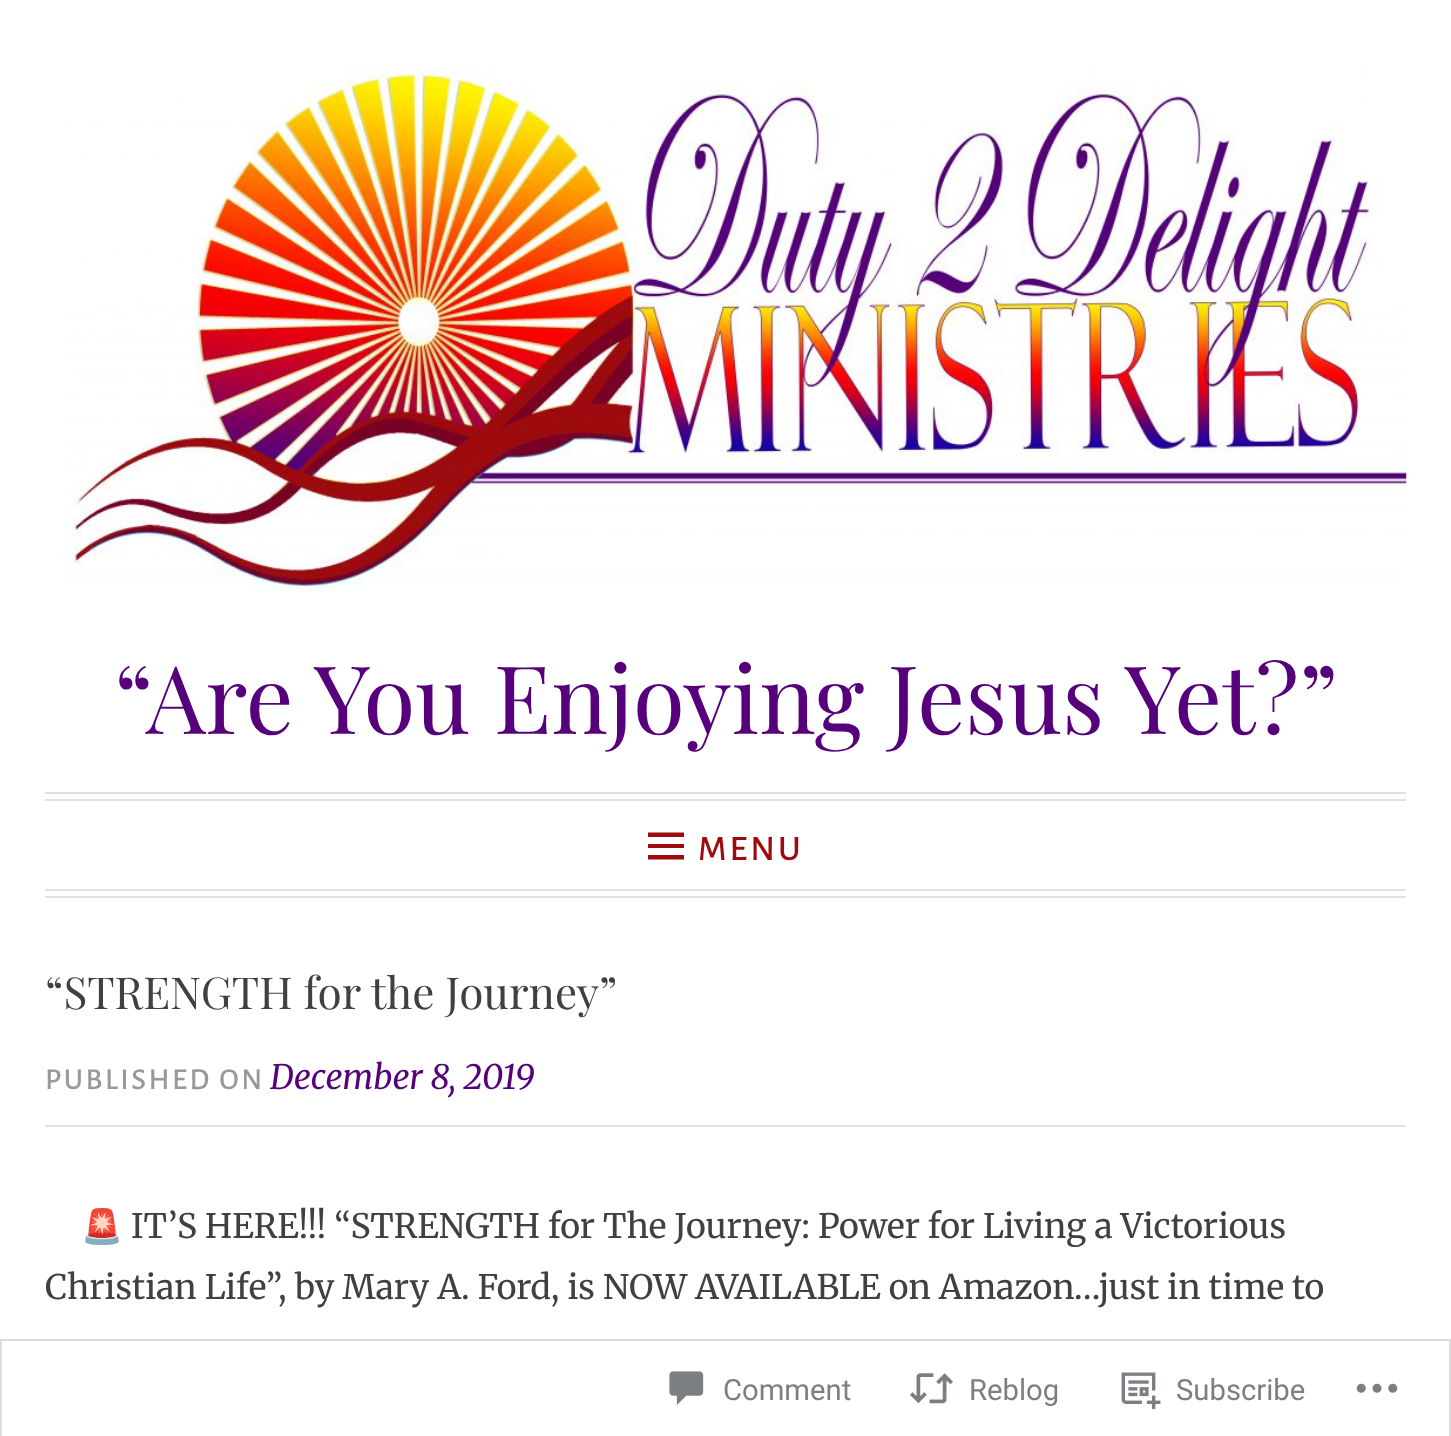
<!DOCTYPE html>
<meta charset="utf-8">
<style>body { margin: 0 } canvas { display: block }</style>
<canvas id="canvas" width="1451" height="1436"></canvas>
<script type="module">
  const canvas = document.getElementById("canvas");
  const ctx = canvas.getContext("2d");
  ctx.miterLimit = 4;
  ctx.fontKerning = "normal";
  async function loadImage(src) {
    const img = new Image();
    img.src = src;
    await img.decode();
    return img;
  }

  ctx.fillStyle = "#ffffff";
  ctx.fillRect(0, 0, 1451, 1436);
  ctx.drawImage(await loadImage("img1.png"), 63, 67, 1344, 525);
  ctx.font = "94.5px Playfair Display";
  ctx.fillStyle = "#56007b";
  ctx.fillText("“Are You Enjoying Jesus Yet?”", 114, 734);
  ctx.fillStyle = "#e1e1e1";
  ctx.fillRect(45, 792, 1361, 2);
  ctx.fillRect(45, 799, 1361, 2);
  ctx.fillRect(45, 889, 1361, 2);
  ctx.fillRect(45, 896, 1361, 2);
  ctx.fillStyle = "#9e0b0f";
  ctx.beginPath();
  ctx.moveTo(648, 859.5);
  ctx.lineTo(648, 855);
  ctx.lineTo(684, 855);
  ctx.lineTo(684, 859.5);
  ctx.closePath();
  ctx.moveTo(648, 832.5);
  ctx.lineTo(684, 832.5);
  ctx.lineTo(684, 837);
  ctx.lineTo(648, 837);
  ctx.closePath();
  ctx.moveTo(648, 848);
  ctx.lineTo(648, 844);
  ctx.lineTo(684, 844);
  ctx.lineTo(684, 848);
  ctx.closePath();
  ctx.fill();
  ctx.letterSpacing = "3px";
  ctx.font = "500 36px Alegreya Sans";
  ctx.fillText("MENU", 698, 860);
  ctx.fillStyle = "#e1e1e1";
  ctx.fillRect(45, 1125, 1361, 2);
  ctx.letterSpacing = "0px";
  ctx.font = "44.1px Playfair Display";
  ctx.fillStyle = "#404040";
  ctx.fillText("“STRENGTH for the Journey”", 45, 1009);
  ctx.letterSpacing = "2.5px";
  ctx.font = "500 30.5px Alegreya Sans";
  ctx.fillStyle = "#999999";
  ctx.fillText("PUBLISHED ON", 45, 1089);
  ctx.letterSpacing = "0px";
  ctx.font = "italic 33.75px Merriweather";
  ctx.fillStyle = "#56007b";
  ctx.fillText("December 8, 2019", 270, 1089);
  ctx.font = "33.75px Noto Color Emoji";
  ctx.fillStyle = "#404040";
  ctx.fillText("🚨", 81, 1238);
  ctx.font = "33.75px Merriweather";
  ctx.fillText("IT’S HERE!!! “STRENGTH for The Journey: Power for Living a Victorious", 131, 1238);
  ctx.fillText("Christian Life”, by Mary A. Ford, is NOW AVAILABLE on Amazon…just in time to", 45, 1299);
  ctx.strokeStyle = "rgba(220, 220, 222, 0.98)";
  ctx.lineWidth = 2;
  ctx.strokeRect(1, 1340, 1449, 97);
  ctx.drawImage(await loadImage("img2.png"), 669, 1371, 35, 34);
  ctx.font = "29.25px Roboto";
  ctx.fillStyle = "#7b7f85";
  ctx.fillText("Comment", 723, 1400);
  ctx.drawImage(await loadImage("img3.png"), 910, 1373, 43, 31);
  ctx.fillText("Reblog", 969, 1400);
  ctx.drawImage(await loadImage("img4.png"), 1121, 1372, 40, 38);
  ctx.fillText("Subscribe", 1176, 1400);
  ctx.drawImage(await loadImage("img5.png"), 1356, 1383, 42, 10);
</script>
